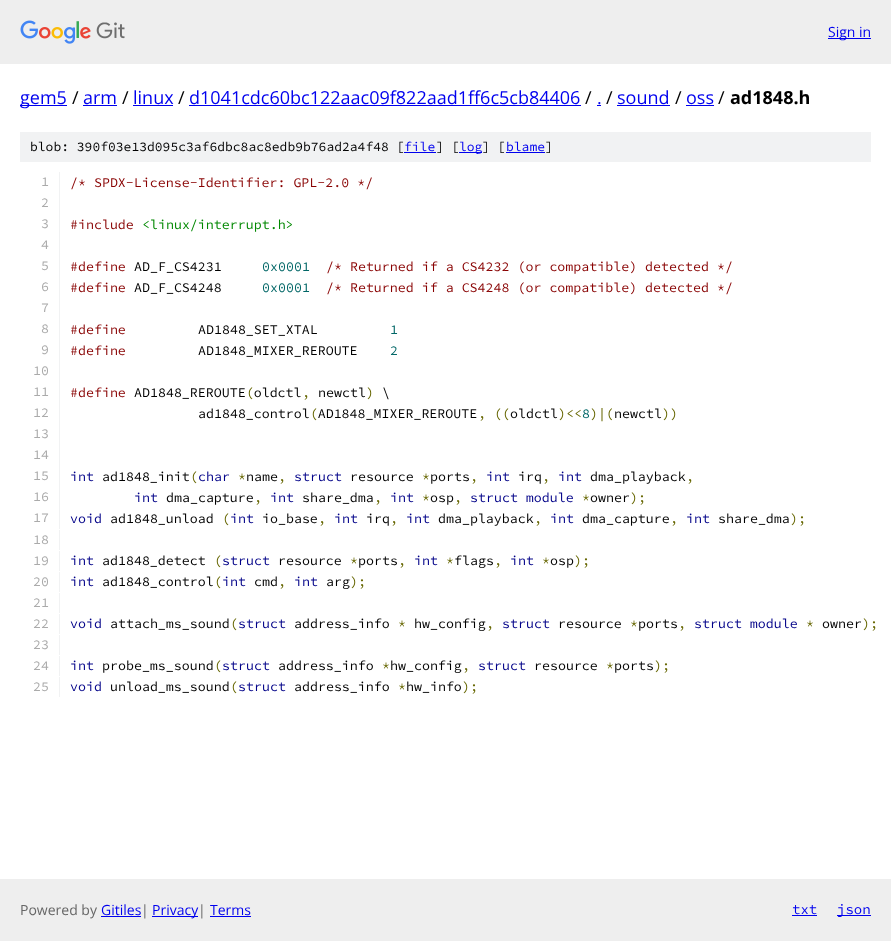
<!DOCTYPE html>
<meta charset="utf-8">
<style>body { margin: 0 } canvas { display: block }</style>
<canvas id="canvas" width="891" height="941"></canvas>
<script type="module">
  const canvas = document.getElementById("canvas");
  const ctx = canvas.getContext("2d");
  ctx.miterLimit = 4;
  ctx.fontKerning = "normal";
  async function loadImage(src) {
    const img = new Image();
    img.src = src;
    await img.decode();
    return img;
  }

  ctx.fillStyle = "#ffffff";
  ctx.fillRect(0, 0, 891, 941);
  ctx.fillStyle = "#eeeeee";
  ctx.fillRect(0, 0, 891, 64);
  ctx.drawImage(await loadImage("img1.png"), 20, 20, 105, 24);
  ctx.fillStyle = "#0000ee";
  ctx.fillRect(828, 38, 43, 1);
  ctx.font = "14px Open Sans";
  ctx.fillText("Sign in", 828, 37);
  ctx.fillRect(20, 105, 47, 1);
  ctx.font = "18px Open Sans";
  ctx.fillText("gem5", 20, 104);
  ctx.fillStyle = "#000000";
  ctx.fillText("/", 72, 104);
  ctx.fillStyle = "#0000ee";
  ctx.fillText("arm", 83, 104);
  ctx.fillRect(83, 105, 34, 1);
  ctx.fillStyle = "#000000";
  ctx.fillText("/", 122, 104);
  ctx.fillStyle = "#0000ee";
  ctx.fillText("linux", 133, 104);
  ctx.fillRect(133, 105, 40, 1);
  ctx.fillStyle = "#000000";
  ctx.fillText("/", 178, 104);
  ctx.fillStyle = "#0000ee";
  ctx.fillText("d1041cdc60bc122aac09f822aad1ff6c5cb84406", 189, 104);
  ctx.fillRect(189, 105, 392, 1);
  ctx.fillStyle = "#000000";
  ctx.fillText("/", 585, 104);
  ctx.fillStyle = "#0000ee";
  ctx.fillText(".", 597, 104);
  ctx.fillRect(597, 105, 4, 1);
  ctx.fillStyle = "#000000";
  ctx.fillText("/", 606, 104);
  ctx.fillStyle = "#0000ee";
  ctx.fillText("sound", 617, 104);
  ctx.fillRect(617, 105, 53, 1);
  ctx.fillStyle = "#000000";
  ctx.fillText("/", 675, 104);
  ctx.fillStyle = "#0000ee";
  ctx.fillText("oss", 686, 104);
  ctx.fillRect(686, 105, 28, 1);
  ctx.fillStyle = "#000000";
  ctx.fillText("/", 718, 104);
  ctx.font = "bold 18px Open Sans";
  ctx.fillText("ad1848.h", 730, 104);
  ctx.fillStyle = "#f1f2f3";
  ctx.fillRect(20, 132, 851, 30);
  ctx.font = "200 13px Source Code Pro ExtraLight";
  ctx.fillStyle = "#000000";
  ctx.fillText("blob: 390f03e13d095c3af6dbc8ac8edb9b76ad2a4f48 [", 30, 151);
  ctx.fillStyle = "#0000ee";
  ctx.fillText("file", 404, 151);
  ctx.fillRect(404, 152, 32, 1);
  ctx.fillStyle = "#000000";
  ctx.fillText("] [", 436, 151);
  ctx.fillStyle = "#0000ee";
  ctx.fillRect(459, 152, 23, 1);
  ctx.fillText("log", 459, 151);
  ctx.fillStyle = "#000000";
  ctx.fillText("] [", 482, 151);
  ctx.fillStyle = "#0000ee";
  ctx.fillText("blame", 506, 151);
  ctx.fillRect(506, 152, 39, 1);
  ctx.fillStyle = "#000000";
  ctx.fillText("]", 545, 151);
  ctx.fillStyle = "#f1f2f3";
  ctx.fillRect(59, 172, 1, 357);
  ctx.font = "200 13.3px Source Code Pro ExtraLight";
  ctx.fillStyle = "#aaaaaa";
  ctx.fillText("1", 41, 186);
  ctx.fillStyle = "#880000";
  ctx.fillText("/* SPDX-License-Identifier: GPL-2.0 */", 70, 187);
  ctx.fillStyle = "#aaaaaa";
  ctx.fillText("2", 41, 207);
  ctx.fillText("3", 41, 228);
  ctx.fillStyle = "#880000";
  ctx.fillText("#include", 70, 229);
  ctx.fillStyle = "#008800";
  ctx.fillText("<linux/interrupt.h>", 142, 229);
  ctx.fillStyle = "#aaaaaa";
  ctx.fillText("4", 41, 249);
  ctx.fillText("5", 41, 270);
  ctx.fillStyle = "#880000";
  ctx.fillText("#define", 70, 271);
  ctx.fillStyle = "#000000";
  ctx.fillText("AD_F_CS4231", 134, 271);
  ctx.fillStyle = "#006666";
  ctx.fillText("0x0001", 262, 271);
  ctx.fillStyle = "#880000";
  ctx.fillText("/* Returned if a CS4232 (or compatible) detected */", 326, 271);
  ctx.fillStyle = "#aaaaaa";
  ctx.fillText("6", 41, 291);
  ctx.fillStyle = "#880000";
  ctx.fillText("#define", 70, 292);
  ctx.fillStyle = "#000000";
  ctx.fillText("AD_F_CS4248", 134, 292);
  ctx.fillStyle = "#006666";
  ctx.fillText("0x0001", 262, 292);
  ctx.fillStyle = "#880000";
  ctx.fillText("/* Returned if a CS4248 (or compatible) detected */", 326, 292);
  ctx.fillStyle = "#aaaaaa";
  ctx.fillText("7", 41, 312);
  ctx.fillText("8", 41, 333);
  ctx.fillStyle = "#880000";
  ctx.fillText("#define", 70, 334);
  ctx.fillStyle = "#000000";
  ctx.fillText("AD1848_SET_XTAL", 198, 334);
  ctx.fillStyle = "#006666";
  ctx.fillText("1", 390, 334);
  ctx.fillStyle = "#aaaaaa";
  ctx.fillText("9", 41, 354);
  ctx.fillStyle = "#880000";
  ctx.fillText("#define", 70, 355);
  ctx.fillStyle = "#000000";
  ctx.fillText("AD1848_MIXER_REROUTE", 198, 355);
  ctx.fillStyle = "#006666";
  ctx.fillText("2", 390, 355);
  ctx.fillStyle = "#aaaaaa";
  ctx.fillText("10", 33, 375);
  ctx.fillText("11", 33, 396);
  ctx.fillStyle = "#880000";
  ctx.fillText("#define", 70, 397);
  ctx.fillStyle = "#000000";
  ctx.fillText("AD1848_REROUTE oldctl", 134, 397);
  ctx.fillStyle = "#666600";
  ctx.fillText("(", 246, 397);
  ctx.fillText(",", 302, 397);
  ctx.fillStyle = "#000000";
  ctx.fillText("newctl", 318, 397);
  ctx.fillStyle = "#666600";
  ctx.fillText(")", 366, 397);
  ctx.fillStyle = "#000000";
  ctx.fillText("\\", 382, 397);
  ctx.fillStyle = "#aaaaaa";
  ctx.fillText("12", 33, 417);
  ctx.fillStyle = "#000000";
  ctx.fillText("ad1848_control AD1848_MIXER_REROUTE", 198, 418);
  ctx.fillStyle = "#666600";
  ctx.fillText("(", 310, 418);
  ctx.fillText(", ((", 478, 418);
  ctx.fillStyle = "#000000";
  ctx.fillText("oldctl", 510, 418);
  ctx.fillStyle = "#666600";
  ctx.fillText(")<< )|(", 558, 418);
  ctx.fillStyle = "#000000";
  ctx.fillText("newctl", 614, 418);
  ctx.fillStyle = "#666600";
  ctx.fillText("))", 662, 418);
  ctx.fillStyle = "#006666";
  ctx.fillText("8", 582, 418);
  ctx.fillStyle = "#aaaaaa";
  ctx.fillText("13", 33, 438);
  ctx.fillText("14", 33, 459);
  ctx.fillText("15", 33, 480);
  ctx.fillStyle = "#000088";
  ctx.fillText("int", 70, 481);
  ctx.fillStyle = "#000000";
  ctx.fillText("ad1848_init", 102, 481);
  ctx.fillStyle = "#666600";
  ctx.fillText("(", 190, 481);
  ctx.fillStyle = "#000088";
  ctx.fillText("char", 198, 481);
  ctx.fillStyle = "#666600";
  ctx.fillText("*", 238, 481);
  ctx.fillStyle = "#000000";
  ctx.fillText("name", 246, 481);
  ctx.fillStyle = "#666600";
  ctx.fillText(",", 278, 481);
  ctx.fillStyle = "#000088";
  ctx.fillText("struct", 294, 481);
  ctx.fillStyle = "#000000";
  ctx.fillText("resource", 350, 481);
  ctx.fillStyle = "#666600";
  ctx.fillText("*", 422, 481);
  ctx.fillStyle = "#000000";
  ctx.fillText("ports", 430, 481);
  ctx.fillStyle = "#666600";
  ctx.fillText(",", 470, 481);
  ctx.fillStyle = "#000088";
  ctx.fillText("int", 486, 481);
  ctx.fillStyle = "#000000";
  ctx.fillText("irq", 518, 481);
  ctx.fillStyle = "#666600";
  ctx.fillText(",", 542, 481);
  ctx.fillStyle = "#000088";
  ctx.fillText("int", 558, 481);
  ctx.fillStyle = "#000000";
  ctx.fillText("dma_playback", 590, 481);
  ctx.fillStyle = "#666600";
  ctx.fillText(",", 686, 481);
  ctx.fillStyle = "#aaaaaa";
  ctx.fillText("16", 33, 501);
  ctx.fillStyle = "#000088";
  ctx.fillText("int", 134, 502);
  ctx.fillStyle = "#000000";
  ctx.fillText("dma_capture", 166, 502);
  ctx.fillStyle = "#666600";
  ctx.fillText(",", 254, 502);
  ctx.fillStyle = "#000088";
  ctx.fillText("int", 270, 502);
  ctx.fillStyle = "#000000";
  ctx.fillText("share_dma", 302, 502);
  ctx.fillStyle = "#666600";
  ctx.fillText(",", 374, 502);
  ctx.fillStyle = "#000088";
  ctx.fillText("int", 390, 502);
  ctx.fillStyle = "#666600";
  ctx.fillText("*", 422, 502);
  ctx.fillStyle = "#000000";
  ctx.fillText("osp", 430, 502);
  ctx.fillStyle = "#666600";
  ctx.fillText(",", 454, 502);
  ctx.fillStyle = "#000088";
  ctx.fillText("struct module", 470, 502);
  ctx.fillStyle = "#666600";
  ctx.fillText("*", 582, 502);
  ctx.fillStyle = "#000000";
  ctx.fillText("owner", 590, 502);
  ctx.fillStyle = "#666600";
  ctx.fillText(");", 630, 502);
  ctx.fillStyle = "#aaaaaa";
  ctx.fillText("17", 33, 522);
  ctx.fillStyle = "#000088";
  ctx.fillText("void", 70, 523);
  ctx.fillStyle = "#000000";
  ctx.fillText("ad1848_unload", 110, 523);
  ctx.fillStyle = "#666600";
  ctx.fillText("(", 222, 523);
  ctx.fillStyle = "#000088";
  ctx.fillText("int", 230, 523);
  ctx.fillStyle = "#000000";
  ctx.fillText("io_base", 262, 523);
  ctx.fillStyle = "#666600";
  ctx.fillText(",", 318, 523);
  ctx.fillStyle = "#000088";
  ctx.fillText("int", 334, 523);
  ctx.fillStyle = "#000000";
  ctx.fillText("irq", 366, 523);
  ctx.fillStyle = "#666600";
  ctx.fillText(",", 390, 523);
  ctx.fillStyle = "#000088";
  ctx.fillText("int", 406, 523);
  ctx.fillStyle = "#000000";
  ctx.fillText("dma_playback", 438, 523);
  ctx.fillStyle = "#666600";
  ctx.fillText(",", 534, 523);
  ctx.fillStyle = "#000088";
  ctx.fillText("int", 550, 523);
  ctx.fillStyle = "#000000";
  ctx.fillText("dma_capture", 582, 523);
  ctx.fillStyle = "#666600";
  ctx.fillText(",", 670, 523);
  ctx.fillStyle = "#000088";
  ctx.fillText("int", 686, 523);
  ctx.fillStyle = "#000000";
  ctx.fillText("share_dma", 718, 523);
  ctx.fillStyle = "#666600";
  ctx.fillText(");", 790, 523);
  ctx.fillStyle = "#f1f2f3";
  ctx.fillRect(59, 530, 1, 20);
  ctx.fillStyle = "#aaaaaa";
  ctx.fillText("18", 33, 544);
  ctx.fillStyle = "#f1f2f3";
  ctx.fillRect(59, 551, 1, 20);
  ctx.fillStyle = "#aaaaaa";
  ctx.fillText("19", 33, 565);
  ctx.fillStyle = "#000088";
  ctx.fillText("int", 70, 565);
  ctx.fillStyle = "#000000";
  ctx.fillText("ad1848_detect", 102, 565);
  ctx.fillStyle = "#666600";
  ctx.fillText("(", 214, 565);
  ctx.fillStyle = "#000088";
  ctx.fillText("struct", 222, 565);
  ctx.fillStyle = "#000000";
  ctx.fillText("resource", 278, 565);
  ctx.fillStyle = "#666600";
  ctx.fillText("*", 350, 565);
  ctx.fillStyle = "#000000";
  ctx.fillText("ports", 358, 565);
  ctx.fillStyle = "#666600";
  ctx.fillText(",", 398, 565);
  ctx.fillStyle = "#000088";
  ctx.fillText("int", 414, 565);
  ctx.fillStyle = "#666600";
  ctx.fillText("*", 446, 565);
  ctx.fillStyle = "#000000";
  ctx.fillText("flags", 454, 565);
  ctx.fillStyle = "#666600";
  ctx.fillText(",", 494, 565);
  ctx.fillStyle = "#000088";
  ctx.fillText("int", 510, 565);
  ctx.fillStyle = "#666600";
  ctx.fillText("*", 542, 565);
  ctx.fillStyle = "#000000";
  ctx.fillText("osp", 550, 565);
  ctx.fillStyle = "#666600";
  ctx.fillText(");", 574, 565);
  ctx.fillStyle = "#f1f2f3";
  ctx.fillRect(59, 572, 1, 20);
  ctx.fillStyle = "#aaaaaa";
  ctx.fillText("20", 33, 586);
  ctx.fillStyle = "#000088";
  ctx.fillText("int", 70, 586);
  ctx.fillStyle = "#000000";
  ctx.fillText("ad1848_control", 102, 586);
  ctx.fillStyle = "#666600";
  ctx.fillText("(", 214, 586);
  ctx.fillStyle = "#000088";
  ctx.fillText("int", 222, 586);
  ctx.fillStyle = "#000000";
  ctx.fillText("cmd", 254, 586);
  ctx.fillStyle = "#666600";
  ctx.fillText(",", 278, 586);
  ctx.fillStyle = "#000088";
  ctx.fillText("int", 294, 586);
  ctx.fillStyle = "#000000";
  ctx.fillText("arg", 326, 586);
  ctx.fillStyle = "#666600";
  ctx.fillText(");", 350, 586);
  ctx.fillStyle = "#f1f2f3";
  ctx.fillRect(59, 593, 1, 20);
  ctx.fillStyle = "#aaaaaa";
  ctx.fillText("21", 33, 607);
  ctx.fillStyle = "#f1f2f3";
  ctx.fillRect(59, 614, 1, 20);
  ctx.fillStyle = "#aaaaaa";
  ctx.fillText("22", 33, 628);
  ctx.fillStyle = "#000088";
  ctx.fillText("void", 70, 628);
  ctx.fillStyle = "#000000";
  ctx.fillText("attach_ms_sound", 110, 628);
  ctx.fillStyle = "#666600";
  ctx.fillText("(", 230, 628);
  ctx.fillStyle = "#000088";
  ctx.fillText("struct", 238, 628);
  ctx.fillStyle = "#000000";
  ctx.fillText("address_info", 294, 628);
  ctx.fillStyle = "#666600";
  ctx.fillText("*", 398, 628);
  ctx.fillStyle = "#000000";
  ctx.fillText("hw_config", 414, 628);
  ctx.fillStyle = "#666600";
  ctx.fillText(",", 486, 628);
  ctx.fillStyle = "#000088";
  ctx.fillText("struct", 502, 628);
  ctx.fillStyle = "#000000";
  ctx.fillText("resource", 558, 628);
  ctx.fillStyle = "#666600";
  ctx.fillText("*", 630, 628);
  ctx.fillStyle = "#000000";
  ctx.fillText("ports", 638, 628);
  ctx.fillStyle = "#666600";
  ctx.fillText(",", 678, 628);
  ctx.fillStyle = "#000088";
  ctx.fillText("struct module", 694, 628);
  ctx.fillStyle = "#666600";
  ctx.fillText("*", 806, 628);
  ctx.fillStyle = "#000000";
  ctx.fillText("owner", 822, 628);
  ctx.fillStyle = "#666600";
  ctx.fillText(");", 862, 628);
  ctx.fillStyle = "#f1f2f3";
  ctx.fillRect(59, 635, 1, 20);
  ctx.fillStyle = "#aaaaaa";
  ctx.fillText("23", 33, 649);
  ctx.fillStyle = "#f1f2f3";
  ctx.fillRect(59, 656, 1, 20);
  ctx.fillStyle = "#aaaaaa";
  ctx.fillText("24", 33, 670);
  ctx.fillStyle = "#000088";
  ctx.fillText("int", 70, 670);
  ctx.fillStyle = "#000000";
  ctx.fillText("probe_ms_sound", 102, 670);
  ctx.fillStyle = "#666600";
  ctx.fillText("(", 214, 670);
  ctx.fillStyle = "#000088";
  ctx.fillText("struct", 222, 670);
  ctx.fillStyle = "#000000";
  ctx.fillText("address_info", 278, 670);
  ctx.fillStyle = "#666600";
  ctx.fillText("*", 382, 670);
  ctx.fillStyle = "#000000";
  ctx.fillText("hw_config", 390, 670);
  ctx.fillStyle = "#666600";
  ctx.fillText(",", 462, 670);
  ctx.fillStyle = "#000088";
  ctx.fillText("struct", 478, 670);
  ctx.fillStyle = "#000000";
  ctx.fillText("resource", 534, 670);
  ctx.fillStyle = "#666600";
  ctx.fillText("*", 606, 670);
  ctx.fillStyle = "#000000";
  ctx.fillText("ports", 614, 670);
  ctx.fillStyle = "#666600";
  ctx.fillText(");", 654, 670);
  ctx.fillStyle = "#f1f2f3";
  ctx.fillRect(59, 677, 1, 20);
  ctx.fillStyle = "#aaaaaa";
  ctx.fillText("25", 33, 691);
  ctx.fillStyle = "#000088";
  ctx.fillText("void", 70, 691);
  ctx.fillStyle = "#000000";
  ctx.fillText("unload_ms_sound", 110, 691);
  ctx.fillStyle = "#666600";
  ctx.fillText("(", 230, 691);
  ctx.fillStyle = "#000088";
  ctx.fillText("struct", 238, 691);
  ctx.fillStyle = "#000000";
  ctx.fillText("address_info", 294, 691);
  ctx.fillStyle = "#666600";
  ctx.fillText("*", 398, 691);
  ctx.fillStyle = "#000000";
  ctx.fillText("hw_info", 406, 691);
  ctx.fillStyle = "#666600";
  ctx.fillText(");", 462, 691);
  ctx.fillStyle = "#eeeeee";
  ctx.fillRect(0, 879, 891, 62);
  ctx.font = "14px Open Sans";
  ctx.fillStyle = "#666666";
  ctx.fillText("Powered by", 20, 915);
  ctx.fillStyle = "#0000ee";
  ctx.fillText("Gitiles", 101, 915);
  ctx.fillRect(101, 916, 40, 1);
  ctx.fillStyle = "#666666";
  ctx.fillText("|", 141, 915);
  ctx.fillStyle = "#0000ee";
  ctx.fillRect(152, 916, 46, 1);
  ctx.fillText("Privacy", 152, 915);
  ctx.fillStyle = "#666666";
  ctx.fillText("|", 198, 915);
  ctx.fillStyle = "#0000ee";
  ctx.fillText("Terms", 210, 915);
  ctx.fillRect(210, 916, 41, 1);
  ctx.font = "200 14px Source Code Pro ExtraLight";
  ctx.fillText("txt", 792, 914);
  ctx.fillRect(792, 915, 25, 1);
  ctx.fillRect(837, 915, 34, 1);
  ctx.fillText("json", 837, 914);
</script>
